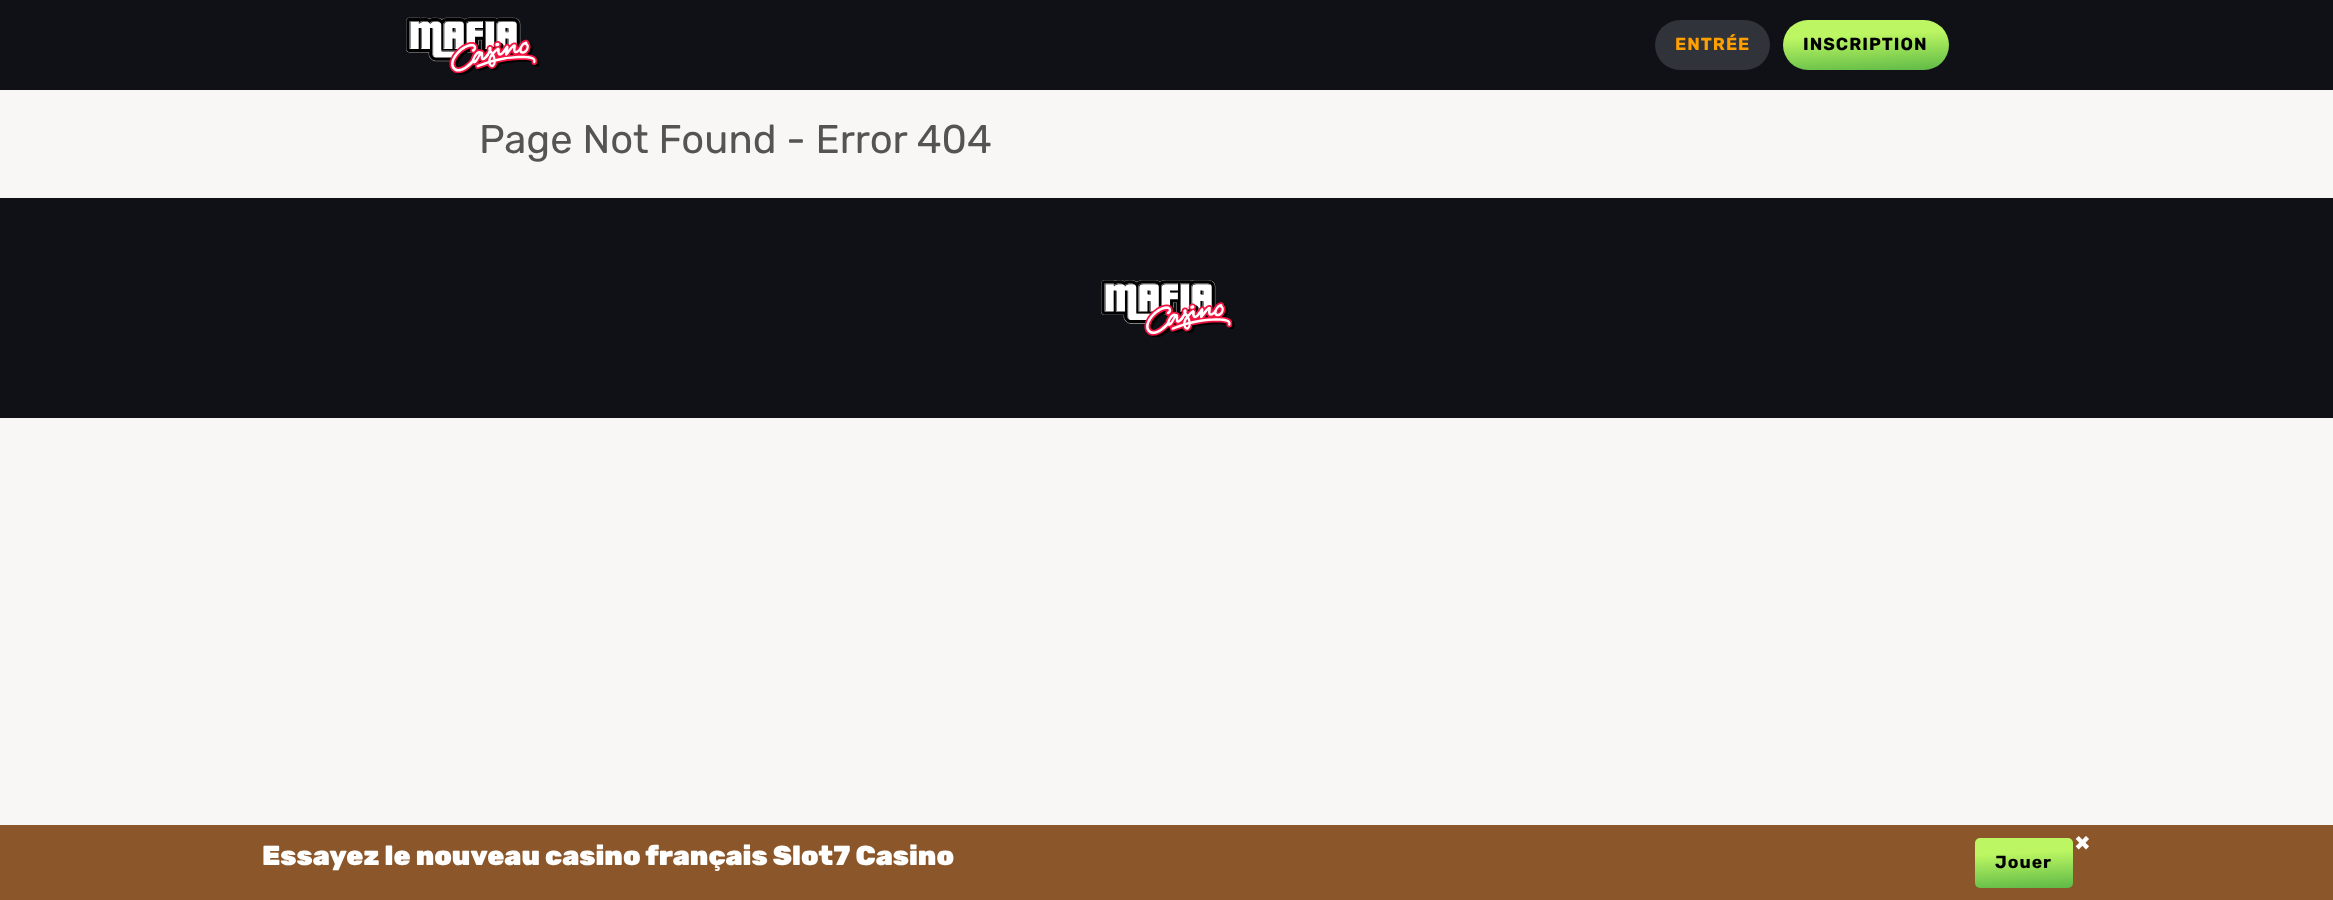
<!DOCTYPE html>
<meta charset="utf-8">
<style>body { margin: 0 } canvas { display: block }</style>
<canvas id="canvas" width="2333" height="900"></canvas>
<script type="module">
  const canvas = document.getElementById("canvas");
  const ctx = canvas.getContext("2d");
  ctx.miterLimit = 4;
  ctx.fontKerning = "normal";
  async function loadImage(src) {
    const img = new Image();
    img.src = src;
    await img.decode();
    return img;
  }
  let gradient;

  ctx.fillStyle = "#f8f7f5";
  ctx.fillRect(0, 0, 2333, 900);
  ctx.fillStyle = "#101116";
  ctx.fillRect(0, 0, 2333, 90);
  ctx.drawImage(await loadImage("img1.png"), 406, 17, 134, 58);
  ctx.fillStyle = "#31333a";
  ctx.beginPath();
  ctx.roundRect(1655, 20, 115, 50, 25);
  ctx.fill();
  ctx.letterSpacing = "1px";
  ctx.font = "bold 17.5px Rubik";
  ctx.fillStyle = "#ffa000";
  ctx.fillText("ENTRÉE", 1675, 50);
  gradient = ctx.createLinearGradient(1864, 16, 1867, 74);
  gradient.addColorStop(0.32, "#bcf662");
  gradient.addColorStop(1, "#5fba47");
  ctx.fillStyle = gradient;
  ctx.beginPath();
  ctx.roundRect(1783, 20, 166, 50, 25);
  ctx.fill();
  ctx.fillStyle = "#000000";
  ctx.fillText("INSCRIPTION", 1803, 50);
  ctx.letterSpacing = "0px";
  ctx.font = "40px Rubik";
  ctx.fillStyle = "#555450";
  ctx.fillText("Page Not Found - Error 404", 479, 153);
  ctx.fillStyle = "#101116";
  ctx.fillRect(0, 198, 2333, 220);
  ctx.drawImage(await loadImage("img2.png"), 1101, 280, 134, 57);
  ctx.fillStyle = "#8b572a";
  ctx.fillRect(0, 825, 2333, 75);
  ctx.font = "900 27.5px Rubik";
  ctx.fillStyle = "#ffffff";
  ctx.fillText("Essayez le nouveau casino français Slot7 Casino", 262, 865);
  gradient = ctx.createLinearGradient(2022, 835, 2025, 890);
  gradient.addColorStop(0.32, "#bcf662");
  gradient.addColorStop(1, "#5fba47");
  ctx.fillStyle = gradient;
  ctx.beginPath();
  ctx.roundRect(1975, 838, 98, 50, 5);
  ctx.fill();
  ctx.letterSpacing = "1px";
  ctx.font = "bold 17.5px Rubik";
  ctx.fillStyle = "#000000";
  ctx.fillText("Jouer", 1995, 868);
  ctx.letterSpacing = "0px";
  ctx.font = "20px DejaVu Sans";
  ctx.fillStyle = "#ffffff";
  ctx.fillText("✖", 2074, 850);
</script>
